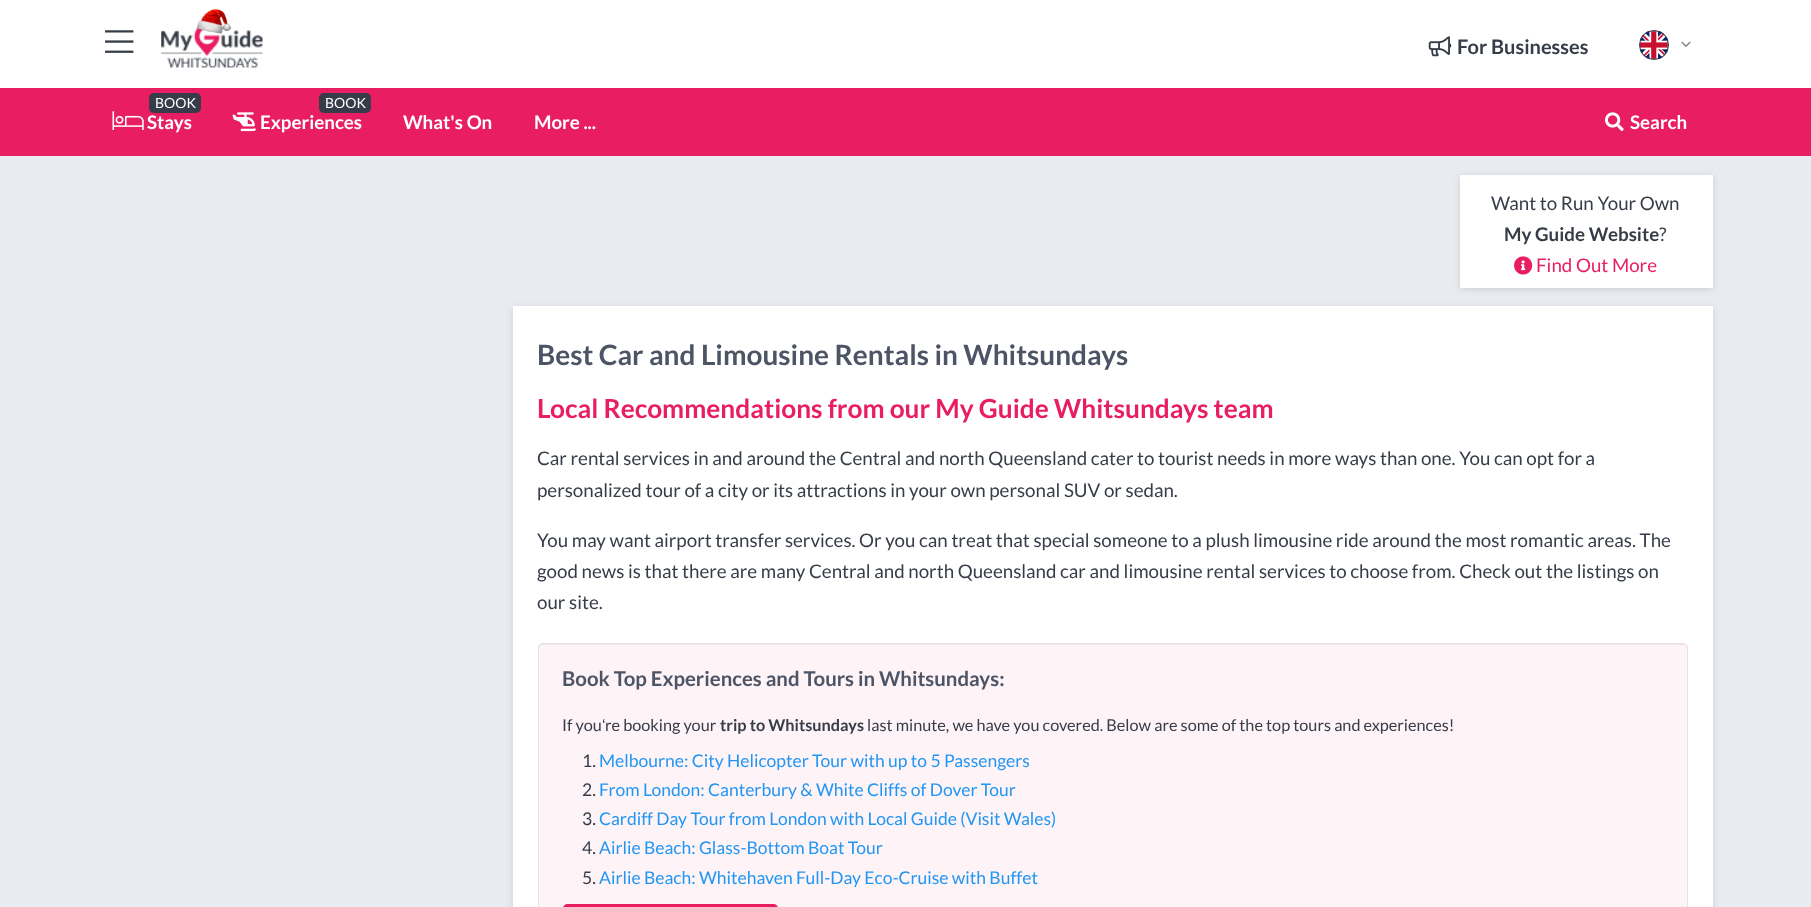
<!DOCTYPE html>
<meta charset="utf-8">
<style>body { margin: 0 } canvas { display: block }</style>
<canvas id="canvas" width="1811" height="907"></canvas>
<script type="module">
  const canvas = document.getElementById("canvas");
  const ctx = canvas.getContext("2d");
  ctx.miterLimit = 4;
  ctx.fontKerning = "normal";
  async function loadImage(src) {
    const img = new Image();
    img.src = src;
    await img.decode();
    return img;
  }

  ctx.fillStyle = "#ffffff";
  ctx.fillRect(0, 0, 1811, 907);
  ctx.drawImage(await loadImage("img1.png"), 105, 30, 29, 23);
  ctx.drawImage(await loadImage("img3.png"), 161, 26, 102, 42);
  ctx.drawImage(await loadImage("img2.png"), 197, 8, 34, 26);
  ctx.drawImage(await loadImage("img4.png"), 1428, 36, 24, 21);
  ctx.font = "bold 20px Lato";
  ctx.fillStyle = "#363c48";
  ctx.fillText("For Businesses", 1457, 54);
  ctx.drawImage(await loadImage("img5.png"), 1640, 31, 28, 28);
  ctx.beginPath();
  ctx.arc(1654, 45, 14.5, 0, Math.PI * 2);
  ctx.strokeStyle = "#363c48";
  ctx.stroke();
  ctx.drawImage(await loadImage("img6.png"), 1681, 41, 10, 7);
  ctx.fillStyle = "#e91d62";
  ctx.fillRect(0, 88, 1811, 68);
  ctx.fillStyle = "#363c48";
  ctx.beginPath();
  ctx.roundRect(149, 93, 52, 20, 5);
  ctx.fill();
  ctx.font = "14px Lato";
  ctx.fillStyle = "#ffffff";
  ctx.fillText("BOOK", 155, 108);
  ctx.drawImage(await loadImage("img7.png"), 112, 111, 32, 19);
  ctx.font = "bold 18.75px Lato";
  ctx.fillText("Stays", 147, 129);
  ctx.fillStyle = "#363c48";
  ctx.beginPath();
  ctx.roundRect(319, 93, 52, 20, 5);
  ctx.fill();
  ctx.font = "14px Lato";
  ctx.fillStyle = "#ffffff";
  ctx.fillText("BOOK", 325, 108);
  ctx.drawImage(await loadImage("img8.png"), 232, 112, 24, 20);
  ctx.font = "bold 18.75px Lato";
  ctx.fillText("Experiences", 260, 129);
  ctx.fillText("What's On", 403, 129);
  ctx.fillText("More ...", 534, 129);
  ctx.drawImage(await loadImage("img9.png"), 1605, 112, 19, 19);
  ctx.fillText("Search", 1630, 129);
  ctx.fillStyle = "#e8ecf1";
  ctx.fillRect(0, 156, 1811, 751);
  ctx.fillStyle = "#cccccc";
  ctx.filter = "blur(3px)";
  ctx.beginPath();
  ctx.rect(1460, 176, 253, 113);
  ctx.fill();
  ctx.filter = "none";
  ctx.fillStyle = "#ffffff";
  ctx.fillRect(1460, 175, 253, 113);
  ctx.font = "18.75px Lato";
  ctx.fillStyle = "#363c48";
  ctx.fillText("Want to Run Your Own", 1491, 210);
  ctx.font = "bold 18.75px Lato";
  ctx.fillText("My Guide Website", 1504, 241);
  ctx.font = "18.75px Lato";
  ctx.fillText("?", 1659, 241);
  ctx.drawImage(await loadImage("img10.png"), 1514, 256, 19, 19);
  ctx.fillStyle = "#e91d62";
  ctx.fillText("Find Out More", 1536, 272);
  ctx.fillStyle = "#cccccc";
  ctx.filter = "blur(3px)";
  ctx.beginPath();
  ctx.rect(513, 308, 1200, 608);
  ctx.fill();
  ctx.filter = "none";
  ctx.fillStyle = "#ffffff";
  ctx.fillRect(513, 306, 1200, 601);
  ctx.font = "bold 28px Lato";
  ctx.fillStyle = "#4c5465";
  ctx.fillText("Best Car and Limousine Rentals in Whitsundays", 537, 365);
  ctx.font = "bold 26.25px Lato";
  ctx.fillStyle = "#e91d62";
  ctx.fillText("Local Recommendations from our My Guide Whitsundays team", 537, 418);
  ctx.font = "18.75px Lato";
  ctx.fillStyle = "#363c48";
  ctx.fillText("Car rental services in and around the Central and north Queensland cater to tourist needs in more ways than one. You can opt for a", 537, 465);
  ctx.fillText("personalized tour of a city or its attractions in your own personal SUV or sedan.", 537, 497);
  ctx.fillText("You may want airport transfer services. Or you can treat that special someone to a plush limousine ride around the most romantic areas. The", 537, 547);
  ctx.fillText("good news is that there are many Central and north Queensland car and limousine rental services to choose from. Check out the listings on", 537, 578);
  ctx.fillText("our site.", 537, 609);
  ctx.fillStyle = "#fef3f7";
  ctx.beginPath();
  ctx.roundRect(538, 643, 1150, 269, 5);
  ctx.fill();
  ctx.fillStyle = "#f1e7eb";
  ctx.beginPath();
  ctx.moveTo(542, 645);
  ctx.lineTo(1682, 645);
  ctx.bezierCurveTo(1685, 645, 1686, 647, 1686, 649);
  ctx.bezierCurveTo(1686, 646, 1685, 644, 1682, 644);
  ctx.lineTo(543, 644);
  ctx.bezierCurveTo(540, 644, 539, 646, 539, 649);
  ctx.bezierCurveTo(539, 647, 540, 645, 542, 645);
  ctx.closePath();
  ctx.fill();
  ctx.beginPath();
  ctx.roundRect(538.5, 643.5, 1149, 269, 4.5);
  ctx.strokeStyle = "#e3e3e3";
  ctx.stroke();
  ctx.font = "bold 20.4px Lato";
  ctx.fillStyle = "#4c5465";
  ctx.fillText("Book Top Experiences and Tours in Whitsundays:", 562, 686);
  ctx.font = "16.25px Lato";
  ctx.fillStyle = "#363c48";
  ctx.fillText("If you", 562, 731);
  ctx.font = "16.25px Liberation Sans";
  ctx.fillText("ʻ", 602, 731);
  ctx.font = "16.25px Lato";
  ctx.fillText("re booking your", 605, 731);
  ctx.font = "bold 16.25px Lato";
  ctx.fillText("trip to Whitsundays", 720, 731);
  ctx.font = "16.25px Lato";
  ctx.fillText("last minute, we have you covered. Below are some of the top tours and experiences!", 867, 731);
  ctx.font = "17.5px Lato";
  ctx.fillText("1.", 582, 767);
  ctx.fillStyle = "#2196f3";
  ctx.fillText("Melbourne: City Helicopter Tour with up to 5 Passengers", 599, 767);
  ctx.fillStyle = "#363c48";
  ctx.fillText("2.", 582, 796);
  ctx.fillStyle = "#2196f3";
  ctx.fillText("From London: Canterbury & White Cliffs of Dover Tour", 599, 796);
  ctx.fillStyle = "#363c48";
  ctx.fillText("3.", 582, 825);
  ctx.fillStyle = "#2196f3";
  ctx.fillText("Cardiff Day Tour from London with Local Guide (Visit Wales)", 599, 825);
  ctx.fillStyle = "#363c48";
  ctx.fillText("4.", 582, 854);
  ctx.fillStyle = "#2196f3";
  ctx.fillText("Airlie Beach: Glass-Bottom Boat Tour", 599, 854);
  ctx.fillStyle = "#363c48";
  ctx.fillText("5.", 582, 884);
  ctx.fillStyle = "#2196f3";
  ctx.fillText("Airlie Beach: Whitehaven Full-Day Eco-Cruise with Buffet", 599, 884);
  ctx.fillStyle = "#e91d62";
  ctx.beginPath();
  ctx.roundRect(563, 904, 215, 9, 6);
  ctx.fill();
</script>
